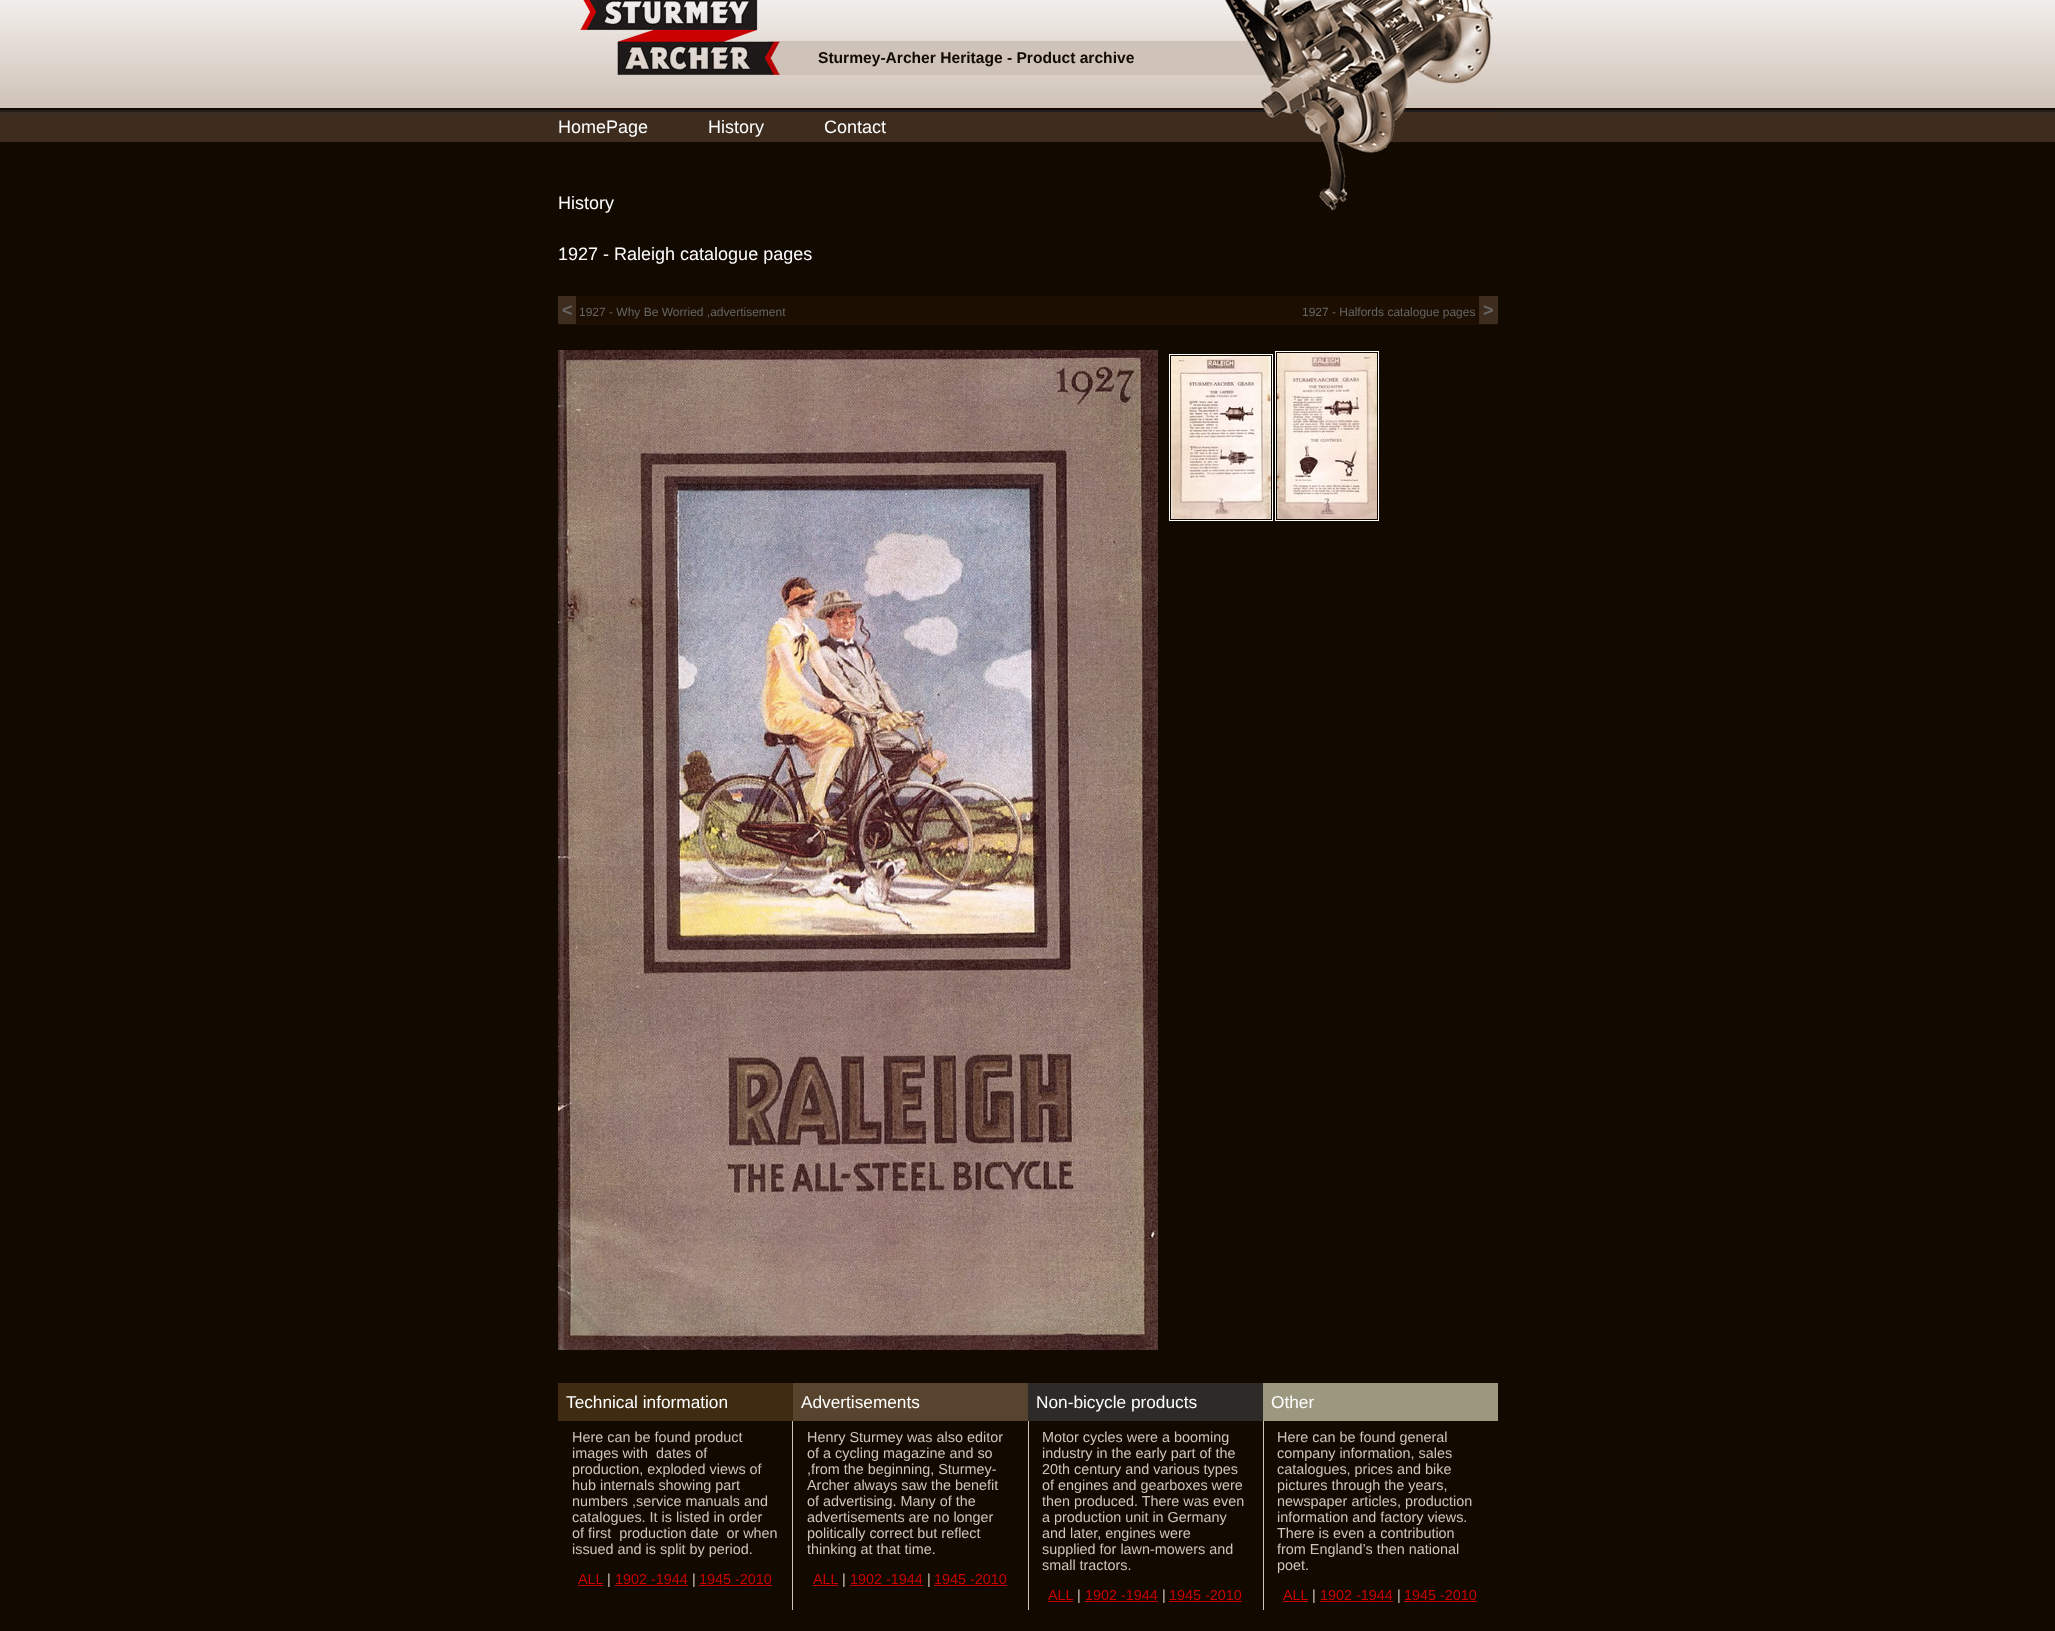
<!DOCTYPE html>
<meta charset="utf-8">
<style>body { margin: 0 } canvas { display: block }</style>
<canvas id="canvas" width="2055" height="1631"></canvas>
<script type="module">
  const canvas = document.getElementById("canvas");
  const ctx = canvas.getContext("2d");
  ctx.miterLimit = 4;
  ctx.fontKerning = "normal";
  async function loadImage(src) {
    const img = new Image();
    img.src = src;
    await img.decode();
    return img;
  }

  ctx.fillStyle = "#120900";
  ctx.fillRect(0, 0, 2055, 1631);
  ctx.drawImage(await loadImage("img1.png"), 0, 0, 2055, 142);
  ctx.drawImage(await loadImage("img2.png"), 558, 0, 940, 112);
  ctx.font = "bold 15.6px Liberation Sans";
  ctx.fillText("Sturmey-Archer Heritage - Product archive", 818, 63);
  ctx.fillStyle = "#3e2d1e";
  ctx.fillRect(558, 112, 940, 2);
  ctx.drawImage(await loadImage("img3.png"), 1264, 112, 142, 30);
  ctx.font = "18px Liberation Sans";
  ctx.fillStyle = "#ffffff";
  ctx.fillText("HomePage", 558, 133);
  ctx.fillText("History", 708, 133);
  ctx.fillText("Contact", 824, 133);
  ctx.drawImage(await loadImage("img4.png"), 1318, 142, 72, 72);
  ctx.fillText("History", 558, 209);
  ctx.fillText("1927 - Raleigh catalogue pages", 558, 260);
  ctx.fillStyle = "#1c0e00";
  ctx.fillRect(558, 296, 940, 29);
  ctx.fillStyle = "#3e2d1e";
  ctx.fillRect(558, 296, 18, 28);
  ctx.font = "bold 18px Liberation Sans";
  ctx.fillStyle = "#666666";
  ctx.fillText("<", 562, 316);
  ctx.font = "12px Liberation Sans";
  ctx.fillText("1927 - Why Be Worried ,advertisement", 579, 316);
  ctx.fillText("1927 - Halfords catalogue pages", 1302, 316);
  ctx.fillStyle = "#3e2d1e";
  ctx.fillRect(1479, 296, 19, 28);
  ctx.font = "bold 18px Liberation Sans";
  ctx.fillStyle = "#666666";
  ctx.fillText(">", 1483, 316);
  ctx.drawImage(await loadImage("img5.png"), 558, 350, 600, 1000);
  ctx.strokeStyle = "#ffffff";
  ctx.strokeRect(1275.5, 351.5, 103, 169);
  ctx.strokeRect(1169.5, 354.5, 103, 166);
  ctx.drawImage(await loadImage("img6.png"), 1277, 353, 100, 166);
  ctx.drawImage(await loadImage("img7.png"), 1171, 356, 100, 163);
  ctx.drawImage(await loadImage("img8.png"), 792, 1421, 472, 189);
  ctx.fillStyle = "#3e2b12";
  ctx.fillRect(558, 1383, 235, 38);
  ctx.font = "17.25px Liberation Sans";
  ctx.fillStyle = "#ffffff";
  ctx.fillText("Technical information", 566, 1408);
  ctx.font = "14.4px Liberation Sans";
  ctx.fillStyle = "#d1c4b9";
  ctx.fillText("Here can be found product", 572, 1442);
  ctx.fillText("images with  dates of", 572, 1458);
  ctx.fillText("production, exploded views of", 572, 1474);
  ctx.fillText("hub internals showing part", 572, 1490);
  ctx.fillText("numbers ,service manuals and", 572, 1506);
  ctx.fillText("catalogues. It is listed in order", 572, 1522);
  ctx.fillText("of first  production date  or when", 572, 1538);
  ctx.fillText("issued and is split by period.", 572, 1554);
  ctx.fillStyle = "#c80000";
  ctx.fillText("ALL", 578, 1584);
  ctx.fillRect(578, 1585, 25, 1);
  ctx.fillStyle = "#d1c4b9";
  ctx.fillText("|", 607, 1584);
  ctx.fillStyle = "#c80000";
  ctx.fillText("1902 -1944", 615, 1584);
  ctx.fillRect(615, 1585, 73, 1);
  ctx.fillStyle = "#d1c4b9";
  ctx.fillText("|", 692, 1584);
  ctx.fillStyle = "#c80000";
  ctx.fillText("1945 -2010", 699, 1584);
  ctx.fillRect(699, 1585, 73, 1);
  ctx.fillStyle = "#58442e";
  ctx.fillRect(793, 1383, 235, 38);
  ctx.font = "17.25px Liberation Sans";
  ctx.fillStyle = "#ffffff";
  ctx.fillText("Advertisements", 801, 1408);
  ctx.font = "14.4px Liberation Sans";
  ctx.fillStyle = "#d1c4b9";
  ctx.fillText("Henry Sturmey was also editor", 807, 1442);
  ctx.fillText("of a cycling magazine and so", 807, 1458);
  ctx.fillText(",from the beginning, Sturmey-", 807, 1474);
  ctx.fillText("Archer always saw the benefit", 807, 1490);
  ctx.fillText("of advertising. Many of the", 807, 1506);
  ctx.fillText("advertisements are no longer", 807, 1522);
  ctx.fillText("politically correct but reflect", 807, 1538);
  ctx.fillText("thinking at that time.", 807, 1554);
  ctx.fillStyle = "#c80000";
  ctx.fillText("ALL", 813, 1584);
  ctx.fillRect(813, 1585, 25, 1);
  ctx.fillStyle = "#d1c4b9";
  ctx.fillText("|", 842, 1584);
  ctx.fillStyle = "#c80000";
  ctx.fillText("1902 -1944", 850, 1584);
  ctx.fillRect(850, 1585, 73, 1);
  ctx.fillStyle = "#d1c4b9";
  ctx.fillText("|", 927, 1584);
  ctx.fillStyle = "#c80000";
  ctx.fillText("1945 -2010", 934, 1584);
  ctx.fillRect(934, 1585, 73, 1);
  ctx.fillStyle = "#2c2b28";
  ctx.fillRect(1028, 1383, 235, 38);
  ctx.font = "17.25px Liberation Sans";
  ctx.fillStyle = "#ffffff";
  ctx.fillText("Non-bicycle products", 1036, 1408);
  ctx.font = "14.4px Liberation Sans";
  ctx.fillStyle = "#d1c4b9";
  ctx.fillText("Motor cycles were a booming", 1042, 1442);
  ctx.fillText("industry in the early part of the", 1042, 1458);
  ctx.fillText("20th century and various types", 1042, 1474);
  ctx.fillText("of engines and gearboxes were", 1042, 1490);
  ctx.fillText("then produced. There was even", 1042, 1506);
  ctx.fillText("a production unit in Germany", 1042, 1522);
  ctx.fillText("and later, engines were", 1042, 1538);
  ctx.fillText("supplied for lawn-mowers and", 1042, 1554);
  ctx.fillText("small tractors.", 1042, 1570);
  ctx.fillStyle = "#c80000";
  ctx.fillText("ALL", 1048, 1600);
  ctx.fillRect(1048, 1601, 25, 1);
  ctx.fillStyle = "#d1c4b9";
  ctx.fillText("|", 1077, 1600);
  ctx.fillStyle = "#c80000";
  ctx.fillText("1902 -1944", 1085, 1600);
  ctx.fillRect(1085, 1601, 73, 1);
  ctx.fillStyle = "#d1c4b9";
  ctx.fillText("|", 1162, 1600);
  ctx.fillStyle = "#c80000";
  ctx.fillText("1945 -2010", 1169, 1600);
  ctx.fillRect(1169, 1601, 73, 1);
  ctx.fillStyle = "#9c987f";
  ctx.fillRect(1263, 1383, 235, 38);
  ctx.font = "17.25px Liberation Sans";
  ctx.fillStyle = "#ffffff";
  ctx.fillText("Other", 1271, 1408);
  ctx.font = "14.4px Liberation Sans";
  ctx.fillStyle = "#d1c4b9";
  ctx.fillText("Here can be found general", 1277, 1442);
  ctx.fillText("company information, sales", 1277, 1458);
  ctx.fillText("catalogues, prices and bike", 1277, 1474);
  ctx.fillText("pictures through the years,", 1277, 1490);
  ctx.fillText("newspaper articles, production", 1277, 1506);
  ctx.fillText("information and factory views.", 1277, 1522);
  ctx.fillText("There is even a contribution", 1277, 1538);
  ctx.fillText("from England’s then national", 1277, 1554);
  ctx.fillText("poet.", 1277, 1570);
  ctx.fillStyle = "#c80000";
  ctx.fillText("ALL", 1283, 1600);
  ctx.fillRect(1283, 1601, 25, 1);
  ctx.fillStyle = "#d1c4b9";
  ctx.fillText("|", 1312, 1600);
  ctx.fillStyle = "#c80000";
  ctx.fillText("1902 -1944", 1320, 1600);
  ctx.fillRect(1320, 1601, 73, 1);
  ctx.fillStyle = "#d1c4b9";
  ctx.fillText("|", 1397, 1600);
  ctx.fillStyle = "#c80000";
  ctx.fillText("1945 -2010", 1404, 1600);
  ctx.fillRect(1404, 1601, 73, 1);
</script>
